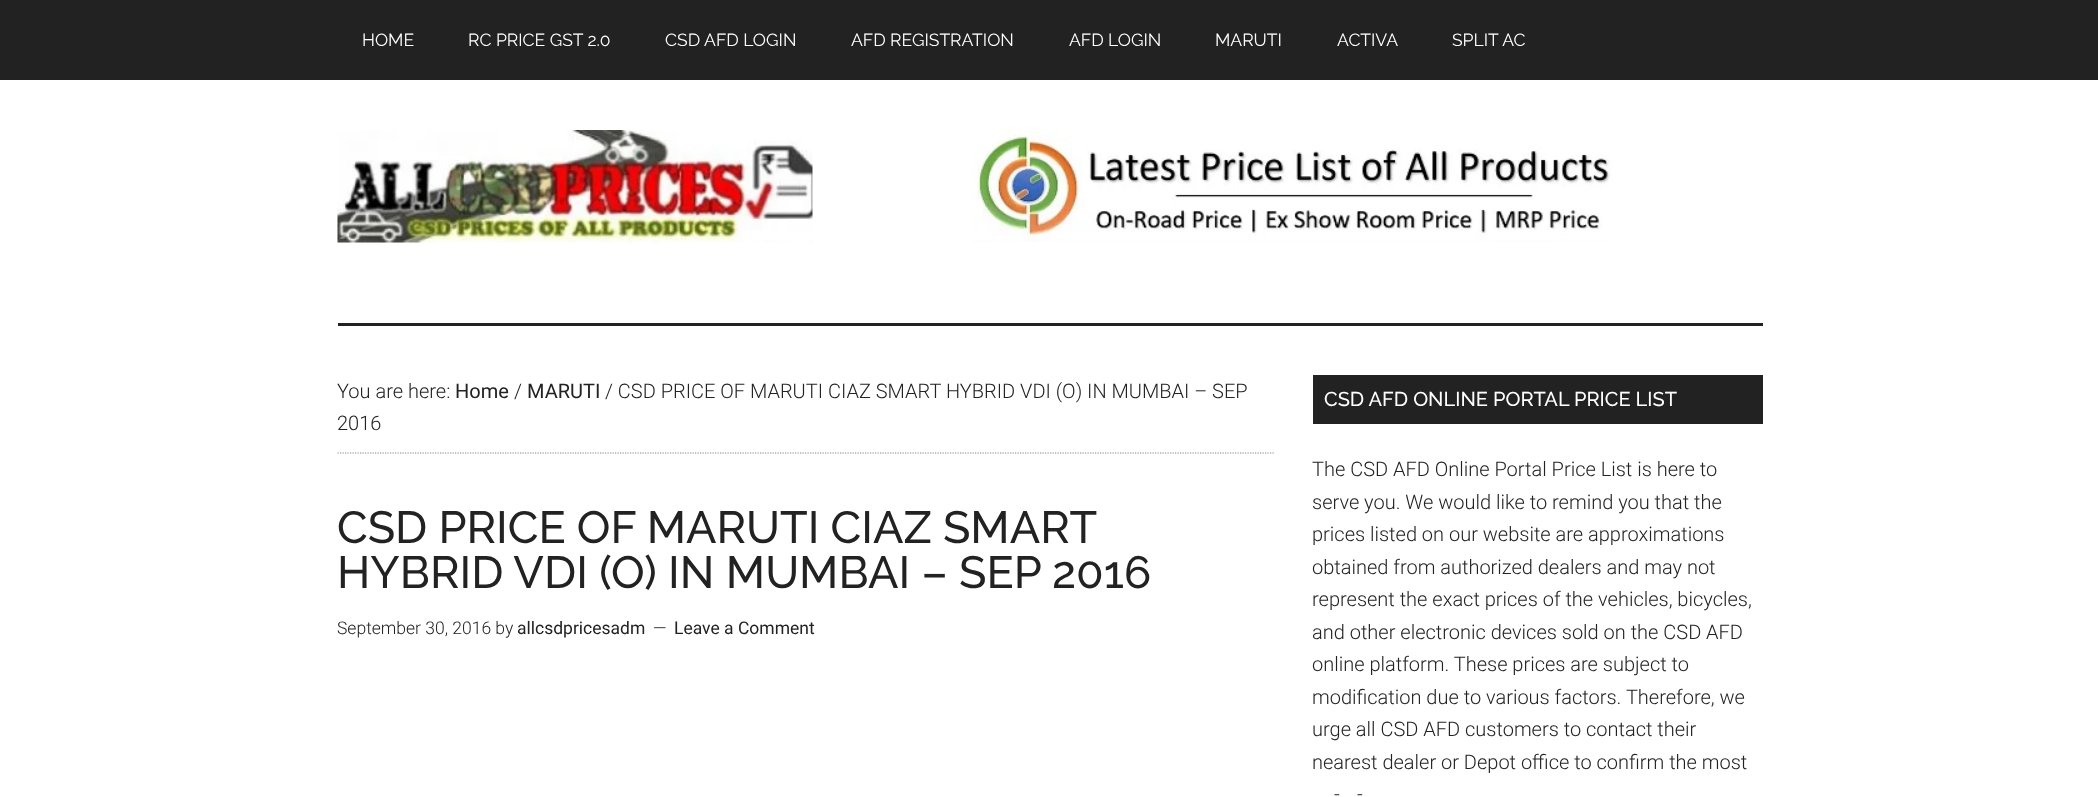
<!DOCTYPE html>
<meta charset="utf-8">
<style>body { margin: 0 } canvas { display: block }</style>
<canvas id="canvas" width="2098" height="797"></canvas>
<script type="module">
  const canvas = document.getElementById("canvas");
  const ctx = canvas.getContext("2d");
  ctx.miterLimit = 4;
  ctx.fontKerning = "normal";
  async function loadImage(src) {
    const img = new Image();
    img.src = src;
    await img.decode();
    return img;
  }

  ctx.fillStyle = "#ffffff";
  ctx.fillRect(0, 0, 2098, 797);
  ctx.fillStyle = "#222222";
  ctx.fillRect(0, 0, 2098, 80);
  ctx.font = "17.5px Raleway";
  ctx.fillStyle = "#ffffff";
  ctx.fillText("HOME", 362, 46);
  ctx.fillText("RC PRICE GST 2.0", 468, 46);
  ctx.fillText("CSD AFD LOGIN", 665, 46);
  ctx.fillText("AFD REGISTRATION", 851, 46);
  ctx.fillText("AFD LOGIN", 1069, 46);
  ctx.fillText("MARUTI", 1215, 46);
  ctx.fillText("ACTIVA", 1337, 46);
  ctx.fillText("SPLIT AC", 1452, 46);
  ctx.fillStyle = "#222222";
  ctx.fillRect(338, 323, 1425, 3);
  ctx.drawImage(await loadImage("img1.png"), 337, 130, 476, 113);
  ctx.drawImage(await loadImage("img2.png"), 972, 130, 640, 112);
  ctx.beginPath();
  ctx.moveTo(337.5, 453);
  ctx.lineTo(1275, 453);
  ctx.strokeStyle = "#888888";
  ctx.lineWidth = 1.2;
  ctx.setLineDash([1.25, 1.25]);
  ctx.stroke();
  ctx.font = "300 20px Roboto";
  ctx.fillText("You are here:", 337, 398);
  ctx.font = "20px Roboto";
  ctx.fillText("Home", 455, 398);
  ctx.font = "300 20px Roboto";
  ctx.fillText("/", 514, 398);
  ctx.font = "20px Roboto";
  ctx.fillText("MARUTI", 527, 398);
  ctx.font = "300 20px Roboto";
  ctx.fillText("/ CSD PRICE OF MARUTI CIAZ SMART HYBRID VDI (O) IN MUMBAI – SEP", 605, 398);
  ctx.fillText("2016", 337, 430);
  ctx.wordSpacing = "-0.25px";
  ctx.font = "500 45px Raleway";
  ctx.fillText("CSD PRICE OF MARUTI CIAZ SMART", 337, 543);
  ctx.wordSpacing = "0px";
  ctx.fillText("HYBRID VDI (O) IN MUMBAI – SEP 2016", 337, 588);
  ctx.font = "300 17.5px Roboto";
  ctx.fillText("September 30, 2016 by", 337, 634);
  ctx.font = "17.5px Roboto";
  ctx.fillText("allcsdpricesadm", 517, 634);
  ctx.font = "300 17.5px Roboto";
  ctx.fillText("—", 653, 634);
  ctx.font = "17.5px Roboto";
  ctx.fillText("Leave a Comment", 674, 634);
  ctx.fillRect(1313, 375, 450, 49);
  ctx.font = "500 20px Raleway";
  ctx.fillStyle = "#ffffff";
  ctx.fillText("CSD AFD ONLINE PORTAL PRICE LIST", 1324, 406);
  ctx.font = "300 20px Roboto";
  ctx.fillStyle = "#222222";
  ctx.fillText("The CSD AFD Online Portal Price List is here to", 1312, 476);
  ctx.fillText("serve you. We would like to remind you that the", 1312, 509);
  ctx.fillText("prices listed on our website are approximations", 1312, 541);
  ctx.fillText("obtained from authorized dealers and may not", 1312, 574);
  ctx.fillText("represent the exact prices of the vehicles, bicycles,", 1312, 606);
  ctx.fillText("and other electronic devices sold on the CSD AFD", 1312, 639);
  ctx.fillText("online platform. These prices are subject to", 1312, 671);
  ctx.fillText("modification due to various factors. Therefore, we", 1312, 704);
  ctx.fillText("urge all CSD AFD customers to contact their", 1312, 736);
  ctx.fillText("nearest dealer or Depot office to confirm the most", 1312, 769);
  ctx.fillText("-", 1334, 801);
  ctx.fillText("-", 1357, 801);
</script>
